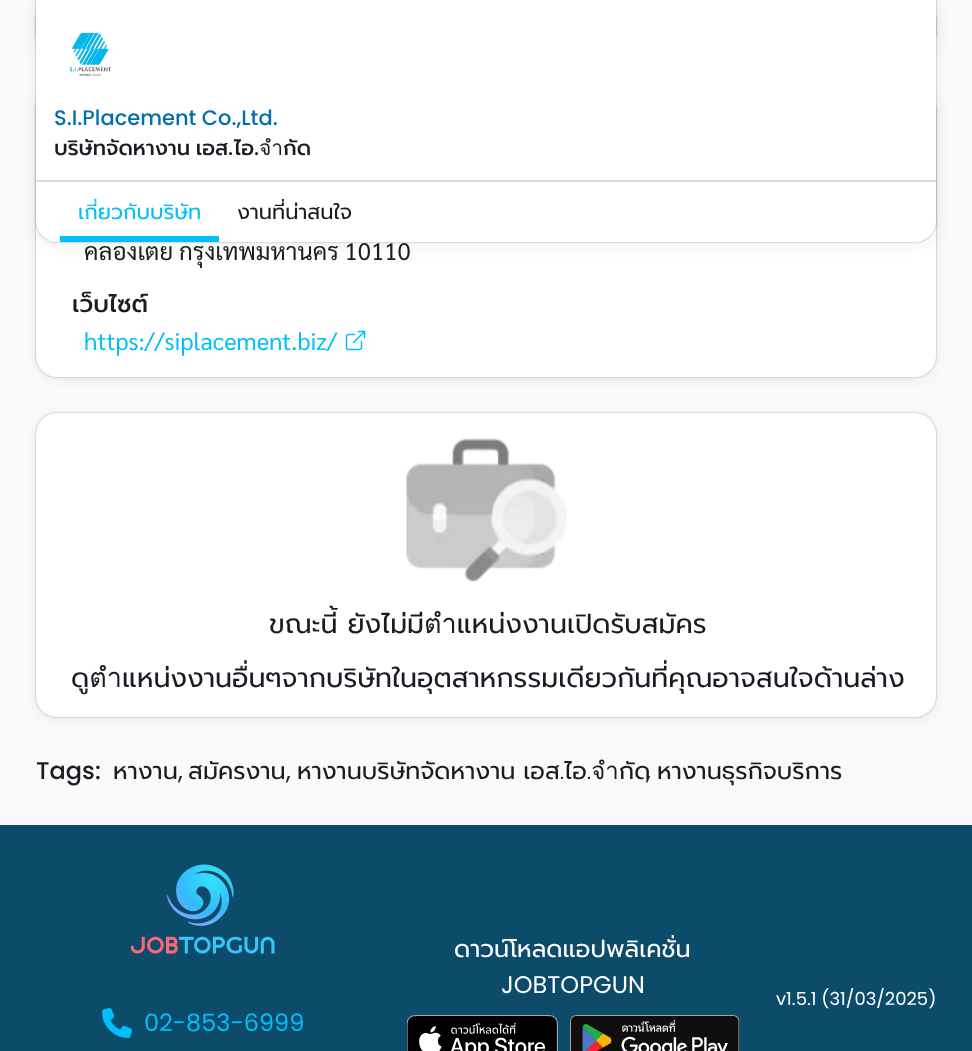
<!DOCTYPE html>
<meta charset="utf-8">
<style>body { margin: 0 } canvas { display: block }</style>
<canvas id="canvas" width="972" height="1051"></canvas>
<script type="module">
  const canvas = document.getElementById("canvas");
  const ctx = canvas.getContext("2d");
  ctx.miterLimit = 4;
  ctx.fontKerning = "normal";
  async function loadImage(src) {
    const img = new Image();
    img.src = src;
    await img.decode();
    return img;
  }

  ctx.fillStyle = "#fafafa";
  ctx.fillRect(0, 0, 972, 1051);
  ctx.fillStyle = "rgba(0, 0, 0, 0.3)";
  ctx.filter = "blur(1px)";
  ctx.beginPath();
  ctx.roundRect(36, 89, 900, 288, 21);
  ctx.fill();
  ctx.filter = "none";
  ctx.fillStyle = "rgba(0, 0, 0, 0.06)";
  ctx.filter = "blur(7.5px)";
  ctx.beginPath();
  ctx.roundRect(36, 92, 900, 288, 21);
  ctx.fill();
  ctx.filter = "none";
  ctx.fillStyle = "#ffffff";
  ctx.beginPath();
  ctx.roundRect(36, 89, 900, 288, 21);
  ctx.fill();
  ctx.fillStyle = "rgba(0, 0, 0, 0.3)";
  ctx.filter = "blur(1px)";
  ctx.beginPath();
  ctx.roundRect(36, 0, 900, 242, 21);
  ctx.fill();
  ctx.filter = "none";
  ctx.fillStyle = "rgba(0, 0, 0, 0.06)";
  ctx.filter = "blur(7.5px)";
  ctx.beginPath();
  ctx.roundRect(36, 3, 900, 242, 21);
  ctx.fill();
  ctx.filter = "none";
  ctx.fillStyle = "rgba(0, 0, 0, 0.3)";
  ctx.filter = "blur(1px)";
  ctx.beginPath();
  ctx.roundRect(36, -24, 900, 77, 21);
  ctx.fill();
  ctx.filter = "none";
  ctx.fillStyle = "rgba(0, 0, 0, 0.06)";
  ctx.filter = "blur(7.5px)";
  ctx.beginPath();
  ctx.roundRect(36, -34, 900, 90, 21);
  ctx.fill();
  ctx.filter = "none";
  ctx.fillStyle = "#ffffff";
  ctx.beginPath();
  ctx.roundRect(36, 0, 900, 242, [0, 0, 21, 21]);
  ctx.fill();
  ctx.drawImage(await loadImage("img1.png"), 69, 31, 42, 46);
  ctx.font = "500 21px Poppins";
  ctx.fillStyle = "#006fac";
  ctx.fillText("S.I.Placement Co.,Ltd.", 54, 125);
  ctx.wordSpacing = "-2px";
  ctx.font = "500 21px Prompt";
  ctx.fillStyle = "#191d23";
  ctx.fillText("บริษัทจัดหางาน เอส", 54, 155);
  ctx.wordSpacing = "0px";
  ctx.font = "500 21px Poppins";
  ctx.fillText(".", 228, 155);
  ctx.font = "500 21px Prompt";
  ctx.fillText("ไอ", 234, 155);
  ctx.font = "500 21px Poppins";
  ctx.fillText(".", 254, 155);
  ctx.font = "500 21px Prompt";
  ctx.fillText("จำกัด", 259, 155);
  ctx.fillStyle = "#dbdbdb";
  ctx.fillRect(36, 180, 900, 2);
  ctx.font = "21px Prompt";
  ctx.fillStyle = "#00bff9";
  ctx.fillText("เกี่ยวกับบริษัท", 78, 219);
  ctx.fillRect(60, 236, 159, 6);
  ctx.fillStyle = "#191d23";
  ctx.fillText("งานที่น่าสนใจ", 237, 219);
  ctx.font = "24px Sarabun";
  ctx.fillText("คลองเตย กรุงเทพมหานคร 10110", 84, 260);
  ctx.font = "500 24px Prompt";
  ctx.fillText("เว็บไซต์", 72, 312);
  ctx.font = "24px Sarabun";
  ctx.fillStyle = "#00bff9";
  ctx.fillText("https://siplacement.biz/", 84, 350);
  ctx.drawImage(await loadImage("img2.png"), 345, 330, 21, 21);
  ctx.fillStyle = "rgba(0, 0, 0, 0.3)";
  ctx.filter = "blur(1px)";
  ctx.beginPath();
  ctx.roundRect(36, 413, 900, 304, 21);
  ctx.fill();
  ctx.filter = "none";
  ctx.fillStyle = "rgba(0, 0, 0, 0.06)";
  ctx.filter = "blur(7.5px)";
  ctx.beginPath();
  ctx.roundRect(36, 416, 900, 304, 21);
  ctx.fill();
  ctx.filter = "none";
  ctx.fillStyle = "#ffffff";
  ctx.beginPath();
  ctx.roundRect(36, 413, 900, 304, 21);
  ctx.fill();
  ctx.drawImage(await loadImage("img3.png"), 406, 438, 161, 144);
  ctx.font = "27px Prompt";
  ctx.fillStyle = "#191d23";
  ctx.fillText("ขณะนี้ ยังไม่มีตำแหน่งงานเปิดรับสมัคร", 269, 633);
  ctx.fillText("ดูตำแหน่งงานอื่นๆจากบริษัทในอุตสาหกรรมเดียวกันที่คุณอาจสนใจด้านล่าง", 71, 687);
  ctx.font = "500 24px Poppins";
  ctx.fillText("Tags:", 36, 779);
  ctx.font = "24px Prompt";
  ctx.fillText("หางาน", 113, 779);
  ctx.font = "24px Poppins";
  ctx.fillText(",", 178, 779);
  ctx.font = "24px Prompt";
  ctx.fillText("สมัครงาน", 188, 779);
  ctx.font = "24px Poppins";
  ctx.fillText(",", 286, 779);
  ctx.wordSpacing = "-1px";
  ctx.font = "24px Prompt";
  ctx.fillText("หางานบริษัทจัดหางาน เอส.ไอ.จำกัด", 297, 779);
  ctx.wordSpacing = "0px";
  ctx.font = "24px Poppins";
  ctx.fillText(",", 646, 779);
  ctx.font = "24px Prompt";
  ctx.fillText("หางานธุรกิจบริการ", 657, 779);
  ctx.fillStyle = "#0d4b6a";
  ctx.fillRect(0, 825, 972, 226);
  ctx.fillStyle = "#ffffff";
  ctx.fillText("ดาวน์โหลดแอปพลิเคชั่น", 454, 957);
  ctx.font = "24px Poppins";
  ctx.fillText("JOBTOPGUN", 501, 993);
  ctx.drawImage(await loadImage("img4.png"), 407, 1015, 151, 36);
  ctx.drawImage(await loadImage("img5.png"), 570, 1015, 170, 36);
  ctx.font = "18px Poppins";
  ctx.fillText("v1.5.1 (31/03/2025)", 776, 1005);
  ctx.drawImage(await loadImage("img6.png"), 131, 864, 144, 90);
  ctx.drawImage(await loadImage("img7.png"), 102, 1008, 30, 30);
  ctx.font = "24px Poppins";
  ctx.fillStyle = "#00bff9";
  ctx.fillText("02-853-6999", 144, 1031);
</script>
